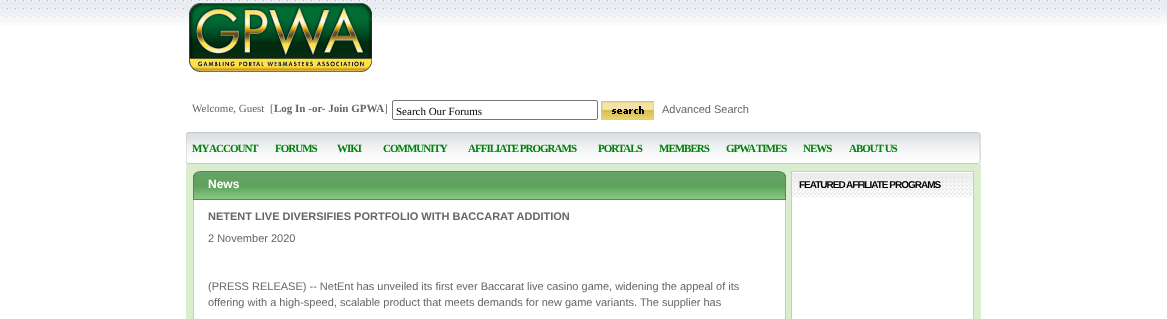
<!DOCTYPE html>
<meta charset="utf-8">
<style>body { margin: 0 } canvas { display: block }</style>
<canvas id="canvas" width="1167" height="319"></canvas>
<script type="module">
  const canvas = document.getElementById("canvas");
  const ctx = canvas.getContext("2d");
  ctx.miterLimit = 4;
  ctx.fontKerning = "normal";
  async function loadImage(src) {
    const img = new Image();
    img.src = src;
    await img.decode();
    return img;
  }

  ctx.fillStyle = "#ffffff";
  ctx.fillRect(0, 0, 1167, 319);
  ctx.drawImage(await loadImage("img1.png"), 0, 0, 1167, 25);
  ctx.drawImage(await loadImage("img2.png"), 189, 3, 183, 69);
  ctx.font = "11px Liberation Serif";
  ctx.fillStyle = "#666666";
  ctx.fillText("Welcome, Guest  [", 192, 112);
  ctx.font = "bold 11px Liberation Serif";
  ctx.fillText("Log In -or- Join GPWA", 274, 112);
  ctx.font = "11px Liberation Serif";
  ctx.fillText("]", 384, 112);
  ctx.beginPath();
  ctx.roundRect(392.5, 100.5, 205, 19, 1.5);
  ctx.strokeStyle = "#767676";
  ctx.stroke();
  ctx.fillStyle = "#000000";
  ctx.fillText("Search Our Forums", 396, 115);
  ctx.drawImage(await loadImage("img3.png"), 601, 101, 53, 19);
  ctx.font = "11px Liberation Sans";
  ctx.fillStyle = "#666666";
  ctx.fillText("Advanced Search", 662, 113);
  ctx.fillStyle = "#dbedcf";
  ctx.fillRect(186, 164, 795, 7);
  ctx.drawImage(await loadImage("img4.png"), 186, 132, 795, 32);
  ctx.letterSpacing = "-1px";
  ctx.font = "bold 11px Liberation Serif";
  ctx.fillStyle = "#01810b";
  ctx.fillText("MY ACCOUNT", 192, 152);
  ctx.fillText("FORUMS", 275, 152);
  ctx.fillText("WIKI", 337, 152);
  ctx.fillText("COMMUNITY", 383, 152);
  ctx.fillText("AFFILIATE PROGRAMS", 468, 152);
  ctx.fillText("PORTALS", 598, 152);
  ctx.fillText("MEMBERS", 659, 152);
  ctx.fillText("GPWA TIMES", 726, 152);
  ctx.fillText("NEWS", 803, 152);
  ctx.fillText("ABOUT US", 849, 152);
  ctx.drawImage(await loadImage("img5.png"), 186, 171, 795, 148);
  ctx.drawImage(await loadImage("img6.png"), 193, 171, 593, 29);
  ctx.letterSpacing = "0px";
  ctx.font = "bold 12px Liberation Sans";
  ctx.fillStyle = "#ffffff";
  ctx.fillText("News", 208, 188);
  ctx.font = "bold 11px Liberation Sans";
  ctx.fillStyle = "#666666";
  ctx.fillText("NETENT LIVE DIVERSIFIES PORTFOLIO WITH BACCARAT ADDITION", 208, 220);
  ctx.font = "11px Liberation Sans";
  ctx.fillText("2 November 2020", 208, 242);
  ctx.fillText("(PRESS RELEASE) -- NetEnt has unveiled its first ever Baccarat live casino game, widening the appeal of its", 208, 290);
  ctx.fillText("offering with a high-speed, scalable product that meets demands for new game variants. The supplier has", 208, 306);
  ctx.drawImage(await loadImage("img7.png"), 792, 171, 181, 26);
  ctx.letterSpacing = "-1px";
  ctx.font = "bold 10px Liberation Sans";
  ctx.fillStyle = "#000000";
  ctx.fillText("FEATURED AFFILIATE PROGRAMS", 799, 188);
</script>
